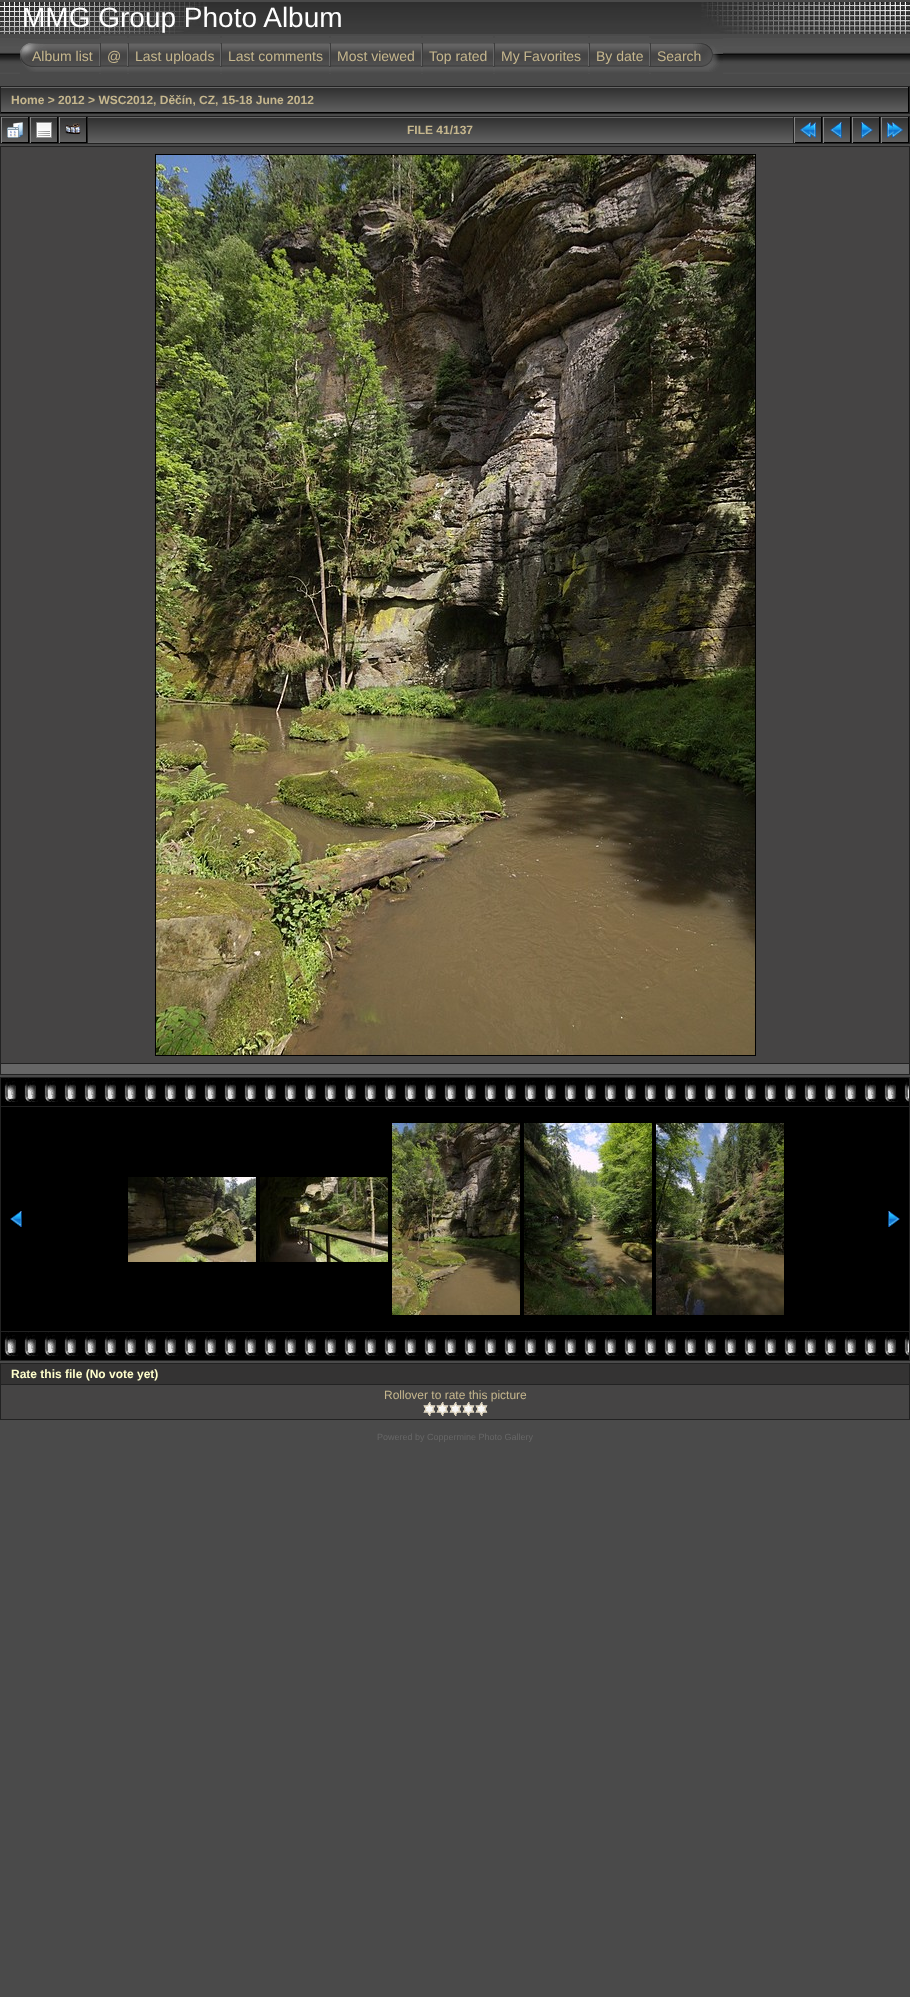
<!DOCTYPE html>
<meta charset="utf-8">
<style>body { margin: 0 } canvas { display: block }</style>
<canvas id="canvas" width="910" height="1997"></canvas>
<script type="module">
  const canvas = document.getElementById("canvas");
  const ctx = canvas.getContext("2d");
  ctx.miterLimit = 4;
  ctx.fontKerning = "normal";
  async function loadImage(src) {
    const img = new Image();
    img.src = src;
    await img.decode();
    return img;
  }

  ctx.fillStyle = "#4a4a4a";
  ctx.fillRect(0, 0, 910, 1997);
  ctx.drawImage(await loadImage("img1.png"), 208, 2, 493, 32);
  ctx.drawImage(await loadImage("img2.png"), 0, 2, 208, 32);
  ctx.drawImage(await loadImage("img3.png"), 701, 2, 209, 32);
  ctx.font = "28px Liberation Sans";
  ctx.fillStyle = "#ffffff";
  ctx.fillText("MMG Group Photo Album", 22, 27);
  ctx.drawImage(await loadImage("img4.png"), 0, 38, 910, 36);
  ctx.fillStyle = "#4a4a4a";
  ctx.fillRect(20, 38, 79, 36);
  ctx.drawImage(await loadImage("img5.png"), 20, 39, 79, 33);
  ctx.font = "14px Liberation Sans";
  ctx.fillStyle = "#c6b78e";
  ctx.fillText("Album list", 32, 61);
  ctx.drawImage(await loadImage("img6.png"), 99, 43, 2, 29);
  ctx.fillStyle = "#4a4a4a";
  ctx.fillRect(101, 73, 26, 1);
  ctx.drawImage(await loadImage("img7.png"), 101, 36, 26, 36);
  ctx.fillStyle = "#c6b78e";
  ctx.fillText("@", 107, 61);
  ctx.drawImage(await loadImage("img6.png"), 127, 43, 2, 29);
  ctx.fillStyle = "#4a4a4a";
  ctx.fillRect(129, 73, 91, 1);
  ctx.drawImage(await loadImage("img8.png"), 129, 36, 91, 36);
  ctx.fillStyle = "#c6b78e";
  ctx.fillText("Last uploads", 135, 61);
  ctx.drawImage(await loadImage("img6.png"), 220, 43, 2, 29);
  ctx.fillStyle = "#4a4a4a";
  ctx.fillRect(222, 73, 107, 1);
  ctx.drawImage(await loadImage("img9.png"), 222, 36, 107, 36);
  ctx.fillStyle = "#c6b78e";
  ctx.fillText("Last comments", 228, 61);
  ctx.drawImage(await loadImage("img6.png"), 329, 43, 2, 29);
  ctx.fillStyle = "#4a4a4a";
  ctx.fillRect(331, 73, 90, 1);
  ctx.drawImage(await loadImage("img10.png"), 331, 36, 90, 36);
  ctx.fillStyle = "#c6b78e";
  ctx.fillText("Most viewed", 337, 61);
  ctx.drawImage(await loadImage("img6.png"), 421, 43, 2, 29);
  ctx.fillStyle = "#4a4a4a";
  ctx.fillRect(423, 73, 70, 1);
  ctx.drawImage(await loadImage("img11.png"), 423, 36, 70, 36);
  ctx.fillStyle = "#c6b78e";
  ctx.fillText("Top rated", 429, 61);
  ctx.drawImage(await loadImage("img6.png"), 493, 43, 2, 29);
  ctx.fillStyle = "#4a4a4a";
  ctx.fillRect(495, 73, 93, 1);
  ctx.drawImage(await loadImage("img12.png"), 495, 36, 93, 36);
  ctx.fillStyle = "#c6b78e";
  ctx.fillText("My Favorites", 501, 61);
  ctx.drawImage(await loadImage("img6.png"), 588, 43, 2, 29);
  ctx.fillStyle = "#4a4a4a";
  ctx.fillRect(590, 73, 59, 1);
  ctx.drawImage(await loadImage("img13.png"), 590, 36, 59, 36);
  ctx.fillStyle = "#c6b78e";
  ctx.fillText("By date", 596, 61);
  ctx.drawImage(await loadImage("img6.png"), 649, 43, 2, 29);
  ctx.fillStyle = "#4a4a4a";
  ctx.fillRect(651, 38, 72, 36);
  ctx.drawImage(await loadImage("img14.png"), 651, 39, 72, 33);
  ctx.fillStyle = "#c6b78e";
  ctx.fillText("Search", 657, 61);
  ctx.fillStyle = "#222222";
  ctx.fillRect(0, 86, 910, 28);
  ctx.drawImage(await loadImage("img15.png"), 1, 87, 907, 25);
  ctx.fillStyle = "#000000";
  ctx.fillRect(908, 87, 1, 26);
  ctx.fillRect(1, 112, 908, 1);
  ctx.font = "bold 12px Liberation Sans";
  ctx.fillStyle = "#c6b78e";
  ctx.fillText("Home > 2012 > WSC2012, Děčín, CZ, 15-18 June 2012", 11, 104);
  ctx.fillStyle = "#222222";
  ctx.fillRect(0, 116, 910, 28);
  ctx.drawImage(await loadImage("img16.png"), 2, 117, 26, 25);
  ctx.fillStyle = "#000000";
  ctx.fillRect(28, 117, 1, 26);
  ctx.fillRect(1, 142, 28, 1);
  ctx.fillStyle = "#838383";
  ctx.fillRect(1, 117, 1, 26);
  ctx.drawImage(await loadImage("img17.png"), 7, 122, 16, 16);
  ctx.drawImage(await loadImage("img16.png"), 31, 117, 26, 25);
  ctx.fillStyle = "#000000";
  ctx.fillRect(57, 117, 1, 26);
  ctx.fillRect(30, 142, 28, 1);
  ctx.fillStyle = "#838383";
  ctx.fillRect(30, 117, 1, 26);
  ctx.drawImage(await loadImage("img18.png"), 36, 122, 16, 16);
  ctx.drawImage(await loadImage("img16.png"), 60, 117, 26, 25);
  ctx.fillStyle = "#000000";
  ctx.fillRect(86, 117, 1, 26);
  ctx.fillRect(59, 142, 28, 1);
  ctx.fillStyle = "#838383";
  ctx.fillRect(59, 117, 1, 26);
  ctx.drawImage(await loadImage("img19.png"), 65, 123, 16, 12);
  ctx.drawImage(await loadImage("img20.png"), 88, 117, 705, 26);
  ctx.fillStyle = "#c6b78e";
  ctx.fillText("FILE 41/137", 407, 134);
  ctx.drawImage(await loadImage("img16.png"), 795, 117, 26, 25);
  ctx.fillStyle = "#000000";
  ctx.fillRect(821, 117, 1, 26);
  ctx.fillRect(794, 142, 28, 1);
  ctx.fillStyle = "#838383";
  ctx.fillRect(794, 117, 1, 26);
  ctx.drawImage(await loadImage("img21.png"), 800, 122, 16, 16);
  ctx.drawImage(await loadImage("img16.png"), 824, 117, 26, 25);
  ctx.fillStyle = "#000000";
  ctx.fillRect(850, 117, 1, 26);
  ctx.fillRect(823, 142, 28, 1);
  ctx.fillStyle = "#838383";
  ctx.fillRect(823, 117, 1, 26);
  ctx.drawImage(await loadImage("img22.png"), 830, 122, 12, 16);
  ctx.drawImage(await loadImage("img16.png"), 853, 117, 26, 25);
  ctx.fillStyle = "#000000";
  ctx.fillRect(879, 117, 1, 26);
  ctx.fillRect(852, 142, 28, 1);
  ctx.fillStyle = "#838383";
  ctx.fillRect(852, 117, 1, 26);
  ctx.drawImage(await loadImage("img23.png"), 861, 122, 12, 16);
  ctx.drawImage(await loadImage("img16.png"), 882, 117, 26, 25);
  ctx.fillStyle = "#000000";
  ctx.fillRect(908, 117, 1, 26);
  ctx.fillRect(881, 142, 28, 1);
  ctx.fillStyle = "#838383";
  ctx.fillRect(881, 117, 1, 26);
  ctx.drawImage(await loadImage("img24.png"), 887, 122, 16, 16);
  ctx.fillStyle = "#222222";
  ctx.fillRect(0, 146, 910, 929);
  ctx.fillStyle = "#454444";
  ctx.fillRect(1, 147, 908, 916);
  ctx.strokeStyle = "#000000";
  ctx.strokeRect(155.5, 154.5, 600, 901);
  ctx.drawImage(await loadImage("img25.png"), 156, 155, 599, 900);
  ctx.fillStyle = "#666666";
  ctx.fillRect(1, 1064, 908, 10);
  ctx.fillStyle = "#222222";
  ctx.fillRect(0, 1077, 910, 284);
  ctx.fillStyle = "#000000";
  ctx.fillRect(1, 1078, 908, 28);
  ctx.drawImage(await loadImage("img26.png"), 4, 1078, 905, 24);
  ctx.fillRect(1, 1107, 908, 224);
  ctx.drawImage(await loadImage("img27.png"), 10, 1211, 12, 16);
  ctx.drawImage(await loadImage("img28.png"), 128, 1177, 128, 85);
  ctx.drawImage(await loadImage("img29.png"), 260, 1177, 128, 85);
  ctx.drawImage(await loadImage("img30.png"), 392, 1123, 128, 192);
  ctx.drawImage(await loadImage("img31.png"), 524, 1123, 128, 192);
  ctx.drawImage(await loadImage("img32.png"), 656, 1123, 128, 192);
  ctx.drawImage(await loadImage("img33.png"), 888, 1211, 12, 16);
  ctx.fillRect(1, 1332, 908, 28);
  ctx.drawImage(await loadImage("img26.png"), 4, 1332, 905, 24);
  ctx.fillStyle = "#222222";
  ctx.fillRect(0, 1363, 910, 57);
  ctx.fillStyle = "#343333";
  ctx.fillRect(1, 1364, 908, 20);
  ctx.fillStyle = "#ffffcc";
  ctx.fillText("Rate this file (No vote yet)", 11, 1378);
  ctx.fillStyle = "#454444";
  ctx.fillRect(1, 1385, 908, 34);
  ctx.font = "12px Liberation Sans";
  ctx.fillStyle = "#c6b78e";
  ctx.fillText("Rollover to rate this picture", 384, 1399);
  ctx.drawImage(await loadImage("img34.png"), 423, 1402, 13, 14);
  ctx.drawImage(await loadImage("img34.png"), 436, 1402, 13, 14);
  ctx.drawImage(await loadImage("img34.png"), 449, 1402, 13, 14);
  ctx.drawImage(await loadImage("img34.png"), 462, 1402, 13, 14);
  ctx.drawImage(await loadImage("img34.png"), 475, 1402, 13, 14);
  ctx.font = "9px Liberation Sans";
  ctx.fillStyle = "#666666";
  ctx.fillText("Powered by Coppermine Photo Gallery", 377, 1440);
</script>
